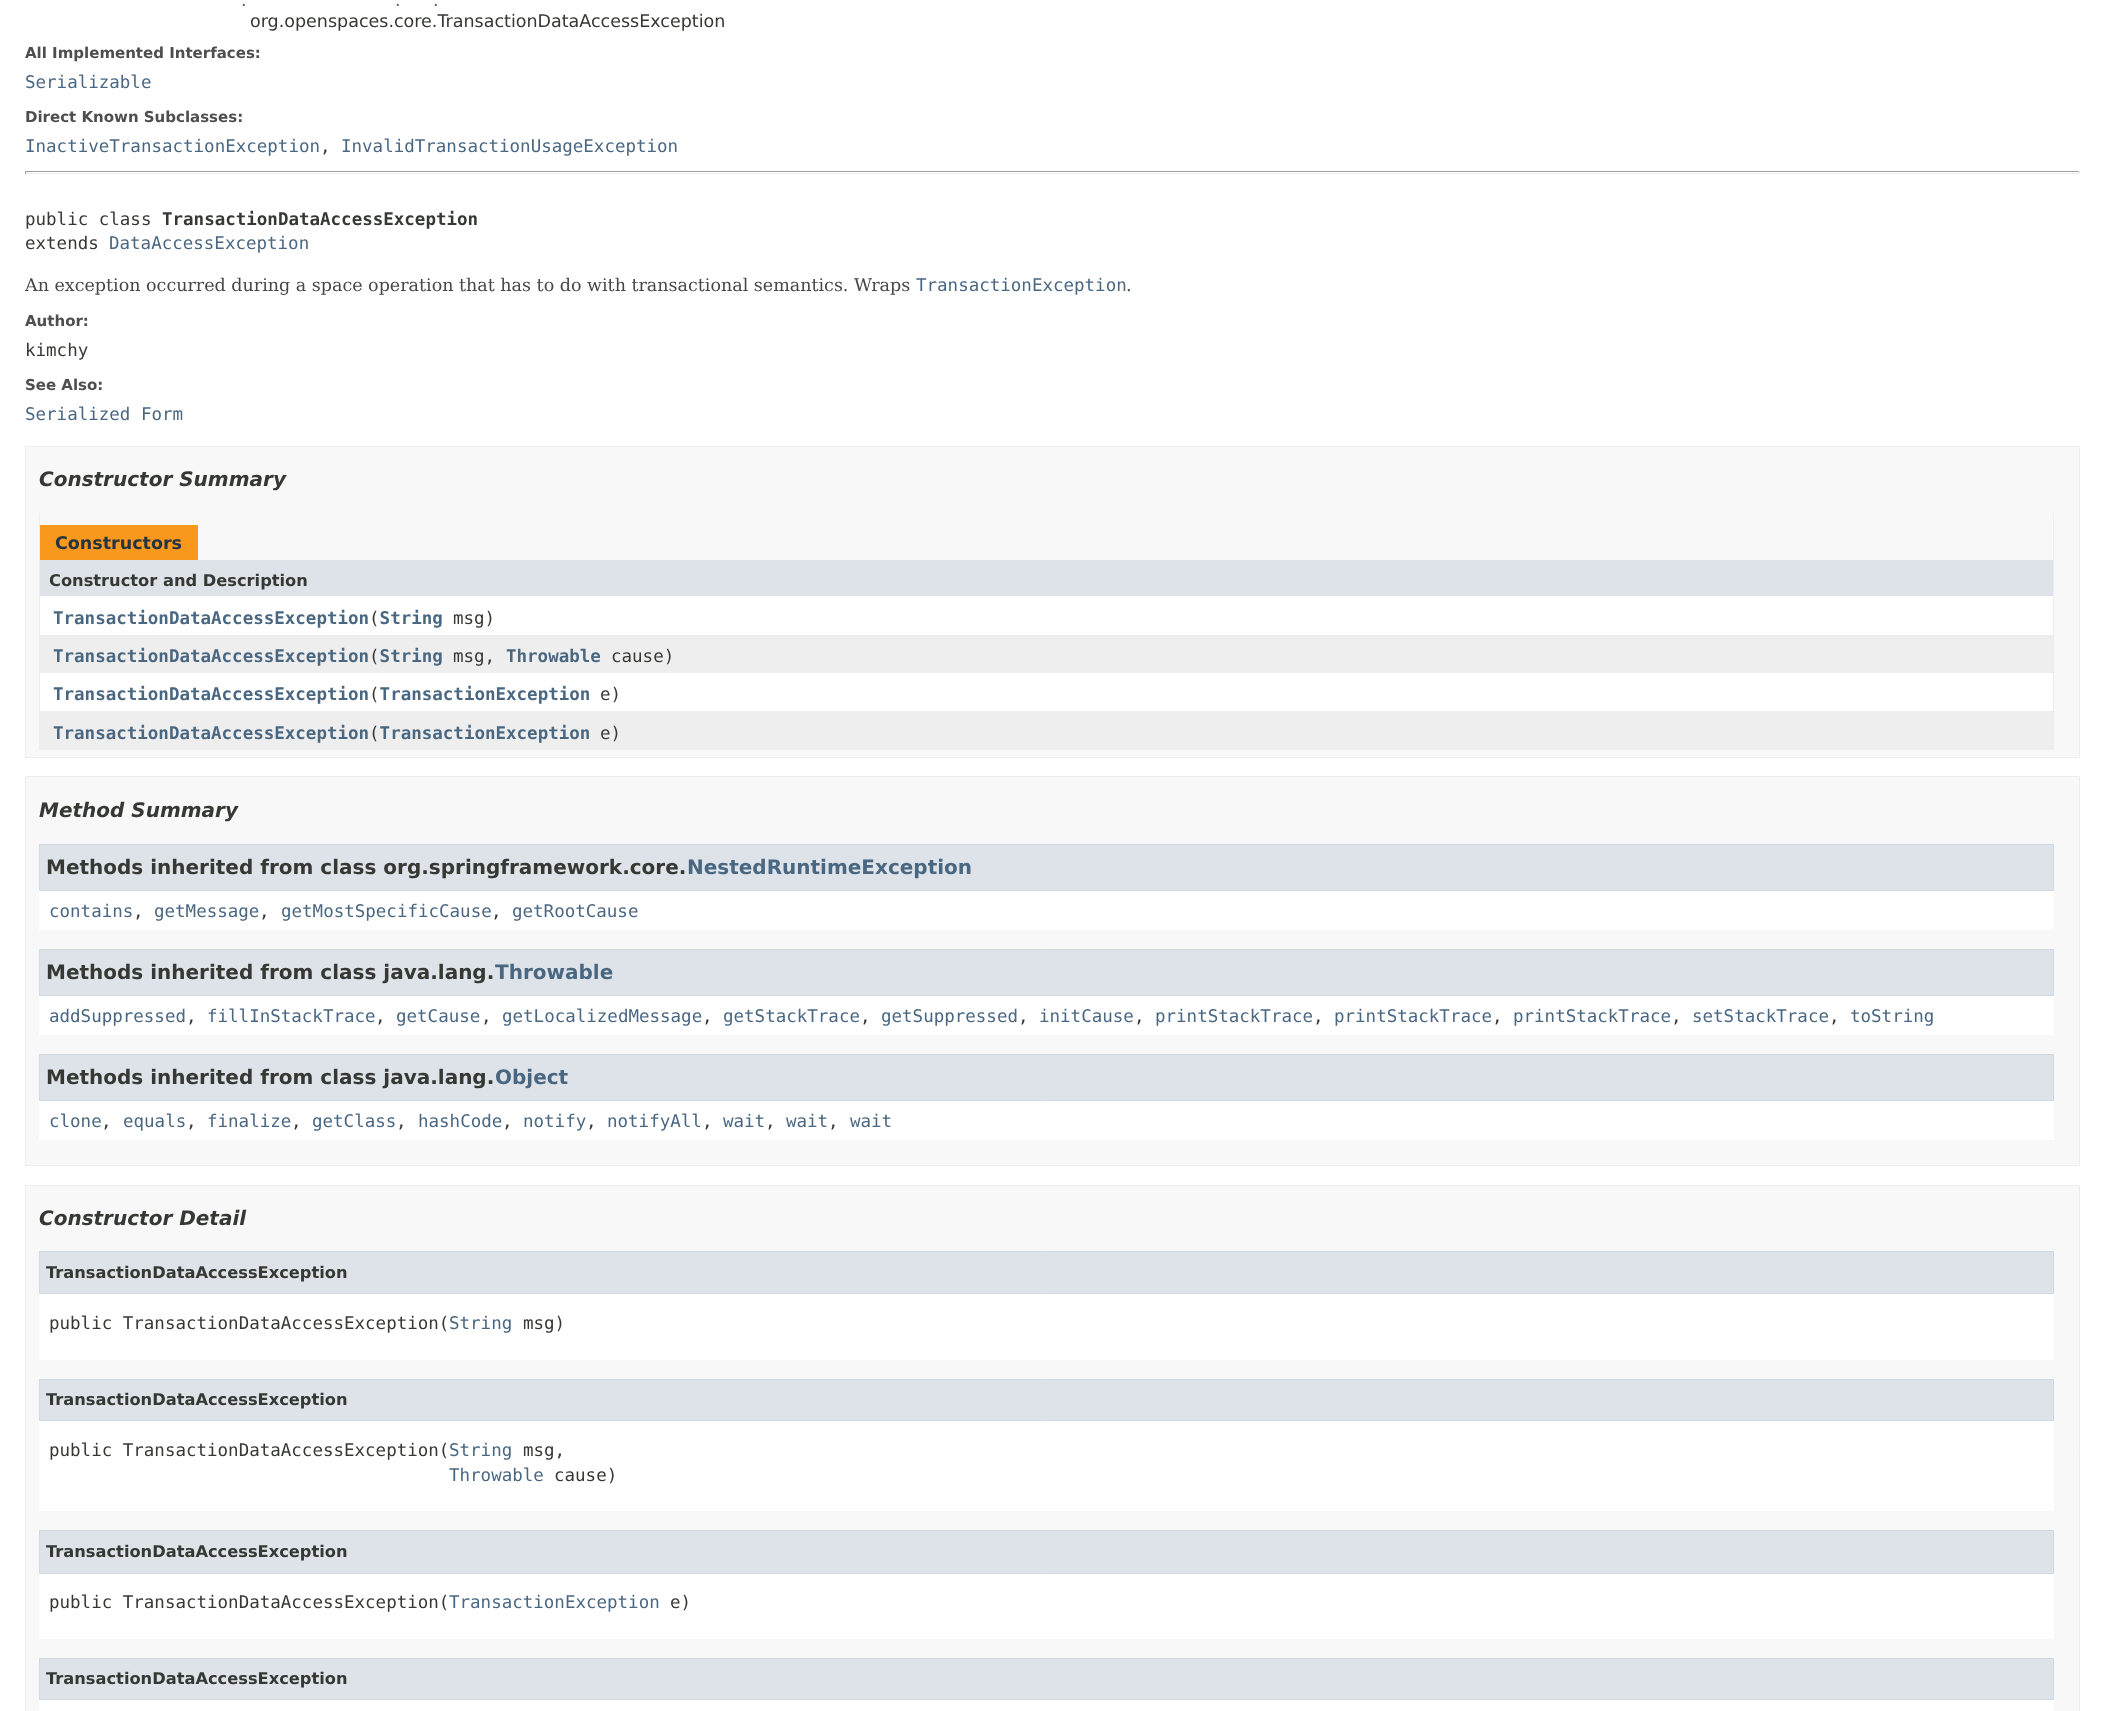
<!DOCTYPE html>
<meta charset="utf-8">
<style>body { margin: 0 } canvas { display: block }</style>
<canvas id="canvas" width="2105" height="1711"></canvas>
<script type="module">
  const canvas = document.getElementById("canvas");
  const ctx = canvas.getContext("2d");
  ctx.miterLimit = 4;
  ctx.fontKerning = "normal";

  ctx.fillStyle = "#ffffff";
  ctx.fillRect(0, 0, 2105, 1711);
  ctx.font = "17.5px DejaVu Sans";
  ctx.fillStyle = "#4a6782";
  ctx.fillText(".", 241, 6);
  ctx.fillText(".", 395, 6);
  ctx.fillText(".", 433, 6);
  ctx.fillStyle = "#353833";
  ctx.fillText("org.openspaces.core.TransactionDataAccessException", 250, 27);
  ctx.font = "bold 15px DejaVu Sans";
  ctx.fillStyle = "#4e4e4e";
  ctx.fillText("All Implemented Interfaces:", 25, 58);
  ctx.font = "17.5px DejaVu Sans Mono";
  ctx.fillStyle = "#4a6782";
  ctx.fillText("Serializable", 25, 88);
  ctx.font = "bold 15px DejaVu Sans";
  ctx.fillStyle = "#4e4e4e";
  ctx.fillText("Direct Known Subclasses:", 25, 122);
  ctx.font = "17.5px DejaVu Sans Mono";
  ctx.fillStyle = "#4a6782";
  ctx.fillText("InactiveTransactionException", 25, 152);
  ctx.fillStyle = "#353833";
  ctx.fillText(",", 320, 152);
  ctx.fillStyle = "#4a6782";
  ctx.fillText("InvalidTransactionUsageException", 341, 152);
  ctx.fillStyle = "#9f9f9f";
  ctx.fillRect(25, 171, 2055, 1);
  ctx.fillStyle = "#eeeeee";
  ctx.fillRect(2079, 171, 1, 3);
  ctx.fillRect(25, 173, 2055, 1);
  ctx.fillStyle = "#9f9f9f";
  ctx.fillRect(25, 171, 1, 3);
  ctx.fillStyle = "#353833";
  ctx.fillText("public class", 25, 225);
  ctx.font = "bold 17.5px DejaVu Sans Mono";
  ctx.fillText("TransactionDataAccessException", 162, 225);
  ctx.font = "17.5px DejaVu Sans Mono";
  ctx.fillText("extends", 25, 249);
  ctx.fillStyle = "#4a6782";
  ctx.fillText("DataAccessException", 109, 249);
  ctx.font = "17.5px DejaVu Serif";
  ctx.fillStyle = "#474747";
  ctx.fillText("An exception occurred during a space operation that has to do with transactional semantics. Wraps", 25, 291);
  ctx.font = "17.5px DejaVu Sans Mono";
  ctx.fillStyle = "#4a6782";
  ctx.fillText("TransactionException", 916, 291);
  ctx.font = "17.5px DejaVu Serif";
  ctx.fillStyle = "#474747";
  ctx.fillText(".", 1126, 291);
  ctx.font = "bold 15px DejaVu Sans";
  ctx.fillStyle = "#4e4e4e";
  ctx.fillText("Author:", 25, 326);
  ctx.font = "17.5px DejaVu Sans Mono";
  ctx.fillStyle = "#353833";
  ctx.fillText("kimchy", 25, 356);
  ctx.font = "bold 15px DejaVu Sans";
  ctx.fillStyle = "#4e4e4e";
  ctx.fillText("See Also:", 25, 390);
  ctx.font = "17.5px DejaVu Sans Mono";
  ctx.fillStyle = "#4a6782";
  ctx.fillText("Serialized Form", 25, 420);
  ctx.fillStyle = "#f8f8f8";
  ctx.beginPath();
  ctx.rect(25.5, 446.5, 2054, 311);
  ctx.fill();
  ctx.strokeStyle = "#ededed";
  ctx.stroke();
  ctx.font = "italic bold 20px DejaVu Sans";
  ctx.fillStyle = "#353833";
  ctx.fillText("Constructor Summary", 39, 486);
  ctx.fillStyle = "#eeeeee";
  ctx.fillRect(2053, 513, 1, 237);
  ctx.fillRect(39, 749, 2015, 1);
  ctx.fillRect(39, 513, 1, 237);
  ctx.fillStyle = "#f8981d";
  ctx.fillRect(40, 525, 158, 35);
  ctx.font = "bold 17.5px DejaVu Sans";
  ctx.fillStyle = "#253441";
  ctx.fillText("Constructors", 55, 549);
  ctx.fillStyle = "#dee3e9";
  ctx.fillRect(40, 560, 2013, 36);
  ctx.font = "bold 16.25px DejaVu Sans";
  ctx.fillStyle = "#353833";
  ctx.fillText("Constructor and Description", 49, 586);
  ctx.fillStyle = "#ffffff";
  ctx.fillRect(40, 596, 2013, 39);
  ctx.font = "bold 17.5px DejaVu Sans Mono";
  ctx.fillStyle = "#4a6782";
  ctx.fillText("TransactionDataAccessException String", 53, 624);
  ctx.font = "17.5px DejaVu Sans Mono";
  ctx.fillStyle = "#353833";
  ctx.fillText("(", 369, 624);
  ctx.fillText("msg)", 453, 624);
  ctx.fillStyle = "#eeeeef";
  ctx.fillRect(40, 635, 2013, 38);
  ctx.font = "bold 17.5px DejaVu Sans Mono";
  ctx.fillStyle = "#4a6782";
  ctx.fillText("TransactionDataAccessException String", 53, 662);
  ctx.font = "17.5px DejaVu Sans Mono";
  ctx.fillStyle = "#353833";
  ctx.fillText("(", 369, 662);
  ctx.fillText("msg,", 453, 662);
  ctx.font = "bold 17.5px DejaVu Sans Mono";
  ctx.fillStyle = "#4a6782";
  ctx.fillText("Throwable", 506, 662);
  ctx.font = "17.5px DejaVu Sans Mono";
  ctx.fillStyle = "#353833";
  ctx.fillText("cause)", 611, 662);
  ctx.fillStyle = "#ffffff";
  ctx.fillRect(40, 673, 2013, 38);
  ctx.font = "bold 17.5px DejaVu Sans Mono";
  ctx.fillStyle = "#4a6782";
  ctx.fillText("TransactionDataAccessException TransactionException", 53, 700);
  ctx.font = "17.5px DejaVu Sans Mono";
  ctx.fillStyle = "#353833";
  ctx.fillText("(", 369, 700);
  ctx.fillText("e)", 600, 700);
  ctx.fillStyle = "#eeeeef";
  ctx.fillRect(40, 711, 2013, 38);
  ctx.font = "bold 17.5px DejaVu Sans Mono";
  ctx.fillStyle = "#4a6782";
  ctx.fillText("TransactionDataAccessException TransactionException", 53, 739);
  ctx.font = "17.5px DejaVu Sans Mono";
  ctx.fillStyle = "#353833";
  ctx.fillText("(", 369, 739);
  ctx.fillText("e)", 600, 739);
  ctx.fillStyle = "#f8f8f8";
  ctx.beginPath();
  ctx.rect(25.5, 776.5, 2054, 389);
  ctx.fill();
  ctx.stroke();
  ctx.font = "italic bold 20px DejaVu Sans";
  ctx.fillStyle = "#353833";
  ctx.fillText("Method Summary", 39, 817);
  ctx.fillStyle = "#ffffff";
  ctx.fillRect(39, 891, 2015, 39);
  ctx.fillStyle = "#dee3e9";
  ctx.beginPath();
  ctx.rect(39.5, 844.5, 2014, 46);
  ctx.fill();
  ctx.strokeStyle = "#d0d9e0";
  ctx.stroke();
  ctx.font = "bold 20px DejaVu Sans";
  ctx.fillStyle = "#353833";
  ctx.fillText("Methods inherited from class org.springframework.core.", 46, 874);
  ctx.fillStyle = "#4a6782";
  ctx.fillText("NestedRuntimeException", 687, 874);
  ctx.font = "17.5px DejaVu Sans Mono";
  ctx.fillText("contains", 49, 917);
  ctx.fillStyle = "#353833";
  ctx.fillText(",", 133, 917);
  ctx.fillStyle = "#4a6782";
  ctx.fillText("getMessage", 154, 917);
  ctx.fillStyle = "#353833";
  ctx.fillText(",", 259, 917);
  ctx.fillStyle = "#4a6782";
  ctx.fillText("getMostSpecificCause", 281, 917);
  ctx.fillStyle = "#353833";
  ctx.fillText(",", 491, 917);
  ctx.fillStyle = "#4a6782";
  ctx.fillText("getRootCause", 512, 917);
  ctx.fillStyle = "#ffffff";
  ctx.fillRect(39, 996, 2015, 39);
  ctx.fillStyle = "#dee3e9";
  ctx.beginPath();
  ctx.rect(39.5, 949.5, 2014, 46);
  ctx.fill();
  ctx.stroke();
  ctx.font = "bold 20px DejaVu Sans";
  ctx.fillStyle = "#353833";
  ctx.fillText("Methods inherited from class java.lang.", 46, 979);
  ctx.fillStyle = "#4a6782";
  ctx.fillText("Throwable", 495, 979);
  ctx.font = "17.5px DejaVu Sans Mono";
  ctx.fillText("addSuppressed", 49, 1022);
  ctx.fillStyle = "#353833";
  ctx.fillText(",", 186, 1022);
  ctx.fillStyle = "#4a6782";
  ctx.fillText("fillInStackTrace", 207, 1022);
  ctx.fillStyle = "#353833";
  ctx.fillText(",", 375, 1022);
  ctx.fillStyle = "#4a6782";
  ctx.fillText("getCause", 396, 1022);
  ctx.fillStyle = "#353833";
  ctx.fillText(",", 481, 1022);
  ctx.fillStyle = "#4a6782";
  ctx.fillText("getLocalizedMessage", 502, 1022);
  ctx.fillStyle = "#353833";
  ctx.fillText(",", 702, 1022);
  ctx.fillStyle = "#4a6782";
  ctx.fillText("getStackTrace", 723, 1022);
  ctx.fillStyle = "#353833";
  ctx.fillText(",", 860, 1022);
  ctx.fillStyle = "#4a6782";
  ctx.fillText("getSuppressed", 881, 1022);
  ctx.fillStyle = "#353833";
  ctx.fillText(",", 1018, 1022);
  ctx.fillStyle = "#4a6782";
  ctx.fillText("initCause", 1039, 1022);
  ctx.fillStyle = "#353833";
  ctx.fillText(",", 1134, 1022);
  ctx.fillStyle = "#4a6782";
  ctx.fillText("printStackTrace", 1155, 1022);
  ctx.fillStyle = "#353833";
  ctx.fillText(",", 1313, 1022);
  ctx.fillStyle = "#4a6782";
  ctx.fillText("printStackTrace", 1334, 1022);
  ctx.fillStyle = "#353833";
  ctx.fillText(",", 1492, 1022);
  ctx.fillStyle = "#4a6782";
  ctx.fillText("printStackTrace", 1513, 1022);
  ctx.fillStyle = "#353833";
  ctx.fillText(",", 1671, 1022);
  ctx.fillStyle = "#4a6782";
  ctx.fillText("setStackTrace", 1692, 1022);
  ctx.fillStyle = "#353833";
  ctx.fillText(",", 1829, 1022);
  ctx.fillStyle = "#4a6782";
  ctx.fillText("toString", 1850, 1022);
  ctx.fillStyle = "#ffffff";
  ctx.fillRect(39, 1101, 2015, 39);
  ctx.fillStyle = "#dee3e9";
  ctx.beginPath();
  ctx.rect(39.5, 1054.5, 2014, 46);
  ctx.fill();
  ctx.stroke();
  ctx.font = "bold 20px DejaVu Sans";
  ctx.fillStyle = "#353833";
  ctx.fillText("Methods inherited from class java.lang.", 46, 1084);
  ctx.fillStyle = "#4a6782";
  ctx.fillText("Object", 495, 1084);
  ctx.font = "17.5px DejaVu Sans Mono";
  ctx.fillText("clone", 49, 1127);
  ctx.fillStyle = "#353833";
  ctx.fillText(",", 101, 1127);
  ctx.fillStyle = "#4a6782";
  ctx.fillText("equals", 123, 1127);
  ctx.fillStyle = "#353833";
  ctx.fillText(",", 186, 1127);
  ctx.fillStyle = "#4a6782";
  ctx.fillText("finalize", 207, 1127);
  ctx.fillStyle = "#353833";
  ctx.fillText(",", 291, 1127);
  ctx.fillStyle = "#4a6782";
  ctx.fillText("getClass", 312, 1127);
  ctx.fillStyle = "#353833";
  ctx.fillText(",", 396, 1127);
  ctx.fillStyle = "#4a6782";
  ctx.fillText("hashCode", 418, 1127);
  ctx.fillStyle = "#353833";
  ctx.fillText(",", 502, 1127);
  ctx.fillStyle = "#4a6782";
  ctx.fillText("notify", 523, 1127);
  ctx.fillStyle = "#353833";
  ctx.fillText(",", 586, 1127);
  ctx.fillStyle = "#4a6782";
  ctx.fillText("notifyAll", 607, 1127);
  ctx.fillStyle = "#353833";
  ctx.fillText(",", 702, 1127);
  ctx.fillStyle = "#4a6782";
  ctx.fillText("wait", 723, 1127);
  ctx.fillStyle = "#353833";
  ctx.fillText(",", 765, 1127);
  ctx.fillStyle = "#4a6782";
  ctx.fillText("wait", 786, 1127);
  ctx.fillStyle = "#353833";
  ctx.fillText(",", 828, 1127);
  ctx.fillStyle = "#4a6782";
  ctx.fillText("wait", 850, 1127);
  ctx.fillStyle = "#f8f8f8";
  ctx.beginPath();
  ctx.rect(25.5, 1185.5, 2054, 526);
  ctx.fill();
  ctx.strokeStyle = "#ededed";
  ctx.stroke();
  ctx.font = "italic bold 20px DejaVu Sans";
  ctx.fillStyle = "#353833";
  ctx.fillText("Constructor Detail", 39, 1225);
  ctx.fillStyle = "#ffffff";
  ctx.fillRect(39, 1294, 2015, 66);
  ctx.fillStyle = "#dee3e9";
  ctx.beginPath();
  ctx.rect(39.5, 1251.5, 2014, 42);
  ctx.fill();
  ctx.strokeStyle = "#d0d9e0";
  ctx.stroke();
  ctx.font = "bold 16.25px DejaVu Sans";
  ctx.fillStyle = "#353833";
  ctx.fillText("TransactionDataAccessException", 46, 1278);
  ctx.font = "17.5px DejaVu Sans Mono";
  ctx.fillText("public TransactionDataAccessException(", 49, 1329);
  ctx.fillStyle = "#4a6782";
  ctx.fillText("String", 449, 1329);
  ctx.fillStyle = "#353833";
  ctx.fillText("msg)", 523, 1329);
  ctx.fillStyle = "#ffffff";
  ctx.fillRect(39, 1421, 2015, 90);
  ctx.fillStyle = "#dee3e9";
  ctx.beginPath();
  ctx.rect(39.5, 1379.5, 2014, 41);
  ctx.fill();
  ctx.stroke();
  ctx.font = "bold 16.25px DejaVu Sans";
  ctx.fillStyle = "#353833";
  ctx.fillText("TransactionDataAccessException", 46, 1405);
  ctx.font = "17.5px DejaVu Sans Mono";
  ctx.fillText("public TransactionDataAccessException(", 49, 1456);
  ctx.fillStyle = "#4a6782";
  ctx.fillText("String", 449, 1456);
  ctx.fillStyle = "#353833";
  ctx.fillText("msg,", 523, 1456);
  ctx.fillStyle = "#4a6782";
  ctx.fillText("Throwable", 449, 1481);
  ctx.fillStyle = "#353833";
  ctx.fillText("cause)", 554, 1481);
  ctx.fillStyle = "#ffffff";
  ctx.fillRect(39, 1574, 2015, 65);
  ctx.fillStyle = "#dee3e9";
  ctx.beginPath();
  ctx.rect(39.5, 1530.5, 2014, 43);
  ctx.fill();
  ctx.stroke();
  ctx.font = "bold 16.25px DejaVu Sans";
  ctx.fillStyle = "#353833";
  ctx.fillText("TransactionDataAccessException", 46, 1557);
  ctx.font = "17.5px DejaVu Sans Mono";
  ctx.fillText("public TransactionDataAccessException(", 49, 1608);
  ctx.fillStyle = "#4a6782";
  ctx.fillText("TransactionException", 449, 1608);
  ctx.fillStyle = "#353833";
  ctx.fillText("e)", 670, 1608);
  ctx.fillStyle = "#ffffff";
  ctx.fillRect(39, 1700, 2015, 11);
  ctx.fillStyle = "#dee3e9";
  ctx.beginPath();
  ctx.rect(39.5, 1658.5, 2014, 41);
  ctx.fill();
  ctx.stroke();
  ctx.font = "bold 16.25px DejaVu Sans";
  ctx.fillStyle = "#353833";
  ctx.fillText("TransactionDataAccessException", 46, 1684);
</script>
